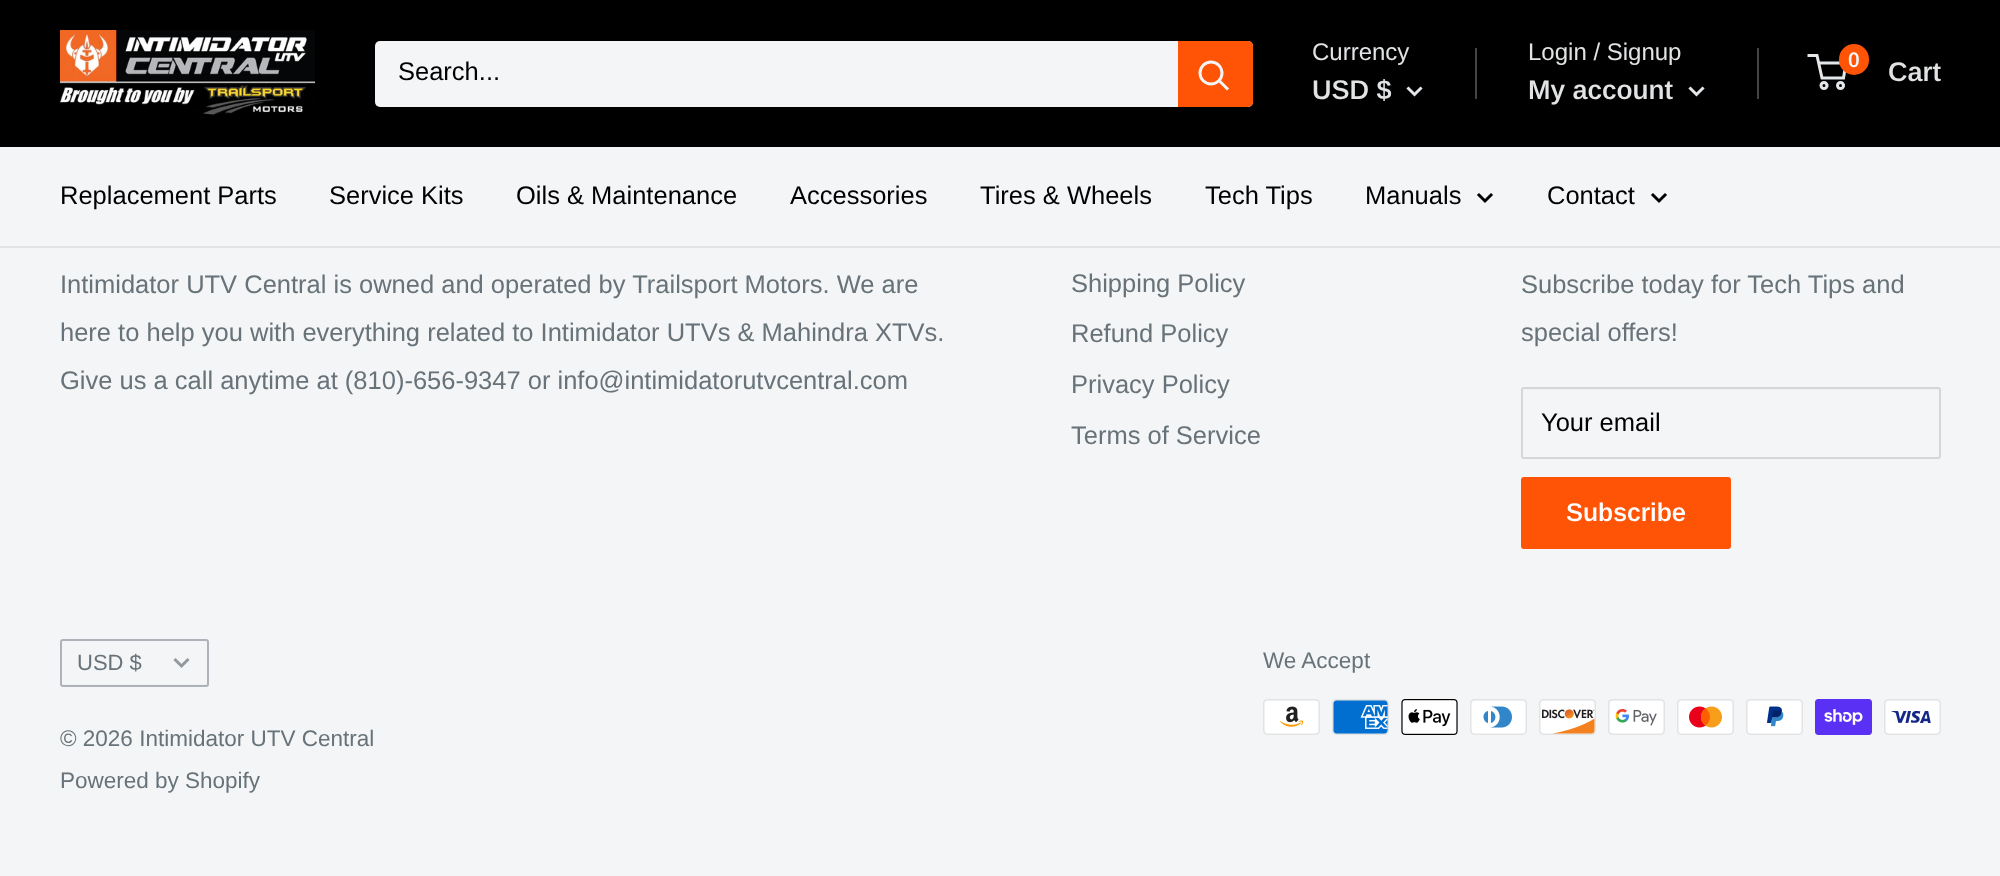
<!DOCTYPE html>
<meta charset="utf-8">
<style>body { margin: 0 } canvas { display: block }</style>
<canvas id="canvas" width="2000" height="876"></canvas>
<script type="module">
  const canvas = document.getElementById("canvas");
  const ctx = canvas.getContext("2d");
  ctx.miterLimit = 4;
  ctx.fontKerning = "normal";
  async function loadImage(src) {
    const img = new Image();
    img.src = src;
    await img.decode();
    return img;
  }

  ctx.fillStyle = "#f3f5f6";
  ctx.fillRect(0, 0, 2000, 876);
  ctx.fillStyle = "#000000";
  ctx.fillRect(0, 0, 2000, 147);
  ctx.drawImage(await loadImage("img1.png"), 60, 30, 255, 85);
  ctx.fillStyle = "#f3f5f6";
  ctx.beginPath();
  ctx.roundRect(375, 41, 878, 66, 5);
  ctx.fill();
  ctx.font = "25.5px Arimo";
  ctx.fillStyle = "#000000";
  ctx.fillText("Search...", 398, 80);
  ctx.fillStyle = "#ff5305";
  ctx.beginPath();
  ctx.roundRect(1178, 41, 75, 66, [0, 5, 5, 0]);
  ctx.fill();
  ctx.beginPath();
  ctx.moveTo(1227, 88.5);
  ctx.lineTo(1219.5, 81);
  ctx.strokeStyle = "#f3f5f6";
  ctx.lineWidth = 3;
  ctx.lineCap = "square";
  ctx.stroke();
  ctx.beginPath();
  ctx.arc(1211, 73, 11, 0, Math.PI * 2);
  ctx.stroke();
  ctx.font = "24px Arimo";
  ctx.fillStyle = "#e1e3e4";
  ctx.fillText("Currency", 1312, 60);
  ctx.font = "600 27px Arimo";
  ctx.fillText("USD $", 1312, 99);
  ctx.beginPath();
  ctx.moveTo(1420.5, 88.5);
  ctx.lineTo(1414.5, 94.5);
  ctx.lineTo(1408.5, 88.5);
  ctx.strokeStyle = "#e4e7e9";
  ctx.stroke();
  ctx.fillStyle = "#444444";
  ctx.fillRect(1475, 48, 2, 51);
  ctx.font = "24px Arimo";
  ctx.fillStyle = "#e1e3e4";
  ctx.fillText("Login / Signup", 1528, 60);
  ctx.fillStyle = "#444444";
  ctx.fillRect(1757, 48, 2, 51);
  ctx.font = "600 27px Arimo";
  ctx.fillStyle = "#e1e3e4";
  ctx.fillText("My account", 1528, 99);
  ctx.beginPath();
  ctx.moveTo(1702.5, 88.5);
  ctx.lineTo(1696.5, 94.5);
  ctx.lineTo(1690.5, 88.5);
  ctx.stroke();
  ctx.beginPath();
  ctx.arc(1824, 85.5, 3, 0, Math.PI * 2);
  ctx.stroke();
  ctx.beginPath();
  ctx.arc(1840.5, 85.5, 3, 0, Math.PI * 2);
  ctx.stroke();
  ctx.beginPath();
  ctx.moveTo(1818.5, 63);
  ctx.lineTo(1846, 63);
  ctx.lineTo(1843.5, 78);
  ctx.lineTo(1822, 78);
  ctx.lineTo(1817, 55.5);
  ctx.lineTo(1807.5, 55.5);
  ctx.lineCap = "butt";
  ctx.stroke();
  ctx.fillStyle = "#ff5305";
  ctx.beginPath();
  ctx.roundRect(1839, 44, 30, 31, 15);
  ctx.fill();
  ctx.font = "600 21px Arimo";
  ctx.fillStyle = "#f3f5f6";
  ctx.fillText("0", 1848, 67);
  ctx.font = "600 27px Arimo";
  ctx.fillStyle = "#e1e3e4";
  ctx.fillText("Cart", 1888, 81);
  ctx.fillRect(0, 246, 2000, 2);
  ctx.font = "25.5px Arimo";
  ctx.fillStyle = "#000000";
  ctx.fillText("Replacement Parts", 60, 204);
  ctx.fillText("Service Kits", 329, 204);
  ctx.fillText("Oils & Maintenance", 516, 204);
  ctx.fillText("Accessories", 790, 204);
  ctx.fillText("Tires & Wheels", 980, 204);
  ctx.fillText("Tech Tips", 1205, 204);
  ctx.fillText("Manuals", 1365, 204);
  ctx.beginPath();
  ctx.moveTo(1491, 195);
  ctx.lineTo(1485, 201);
  ctx.lineTo(1479, 195);
  ctx.strokeStyle = "#000000";
  ctx.lineCap = "square";
  ctx.stroke();
  ctx.fillText("Contact", 1547, 204);
  ctx.beginPath();
  ctx.moveTo(1665, 195);
  ctx.lineTo(1659, 201);
  ctx.lineTo(1653, 195);
  ctx.stroke();
  ctx.fillStyle = "#677279";
  ctx.fillText("Intimidator UTV Central is owned and operated by Trailsport Motors. We are", 60, 293);
  ctx.fillText("here to help you with everything related to Intimidator UTVs & Mahindra XTVs.", 60, 341);
  ctx.fillText("Give us a call anytime at (810)-656-9347 or info@intimidatorutvcentral.com", 60, 389);
  ctx.fillText("Shipping Policy", 1071, 292);
  ctx.fillText("Refund Policy", 1071, 342);
  ctx.fillText("Privacy Policy", 1071, 393);
  ctx.fillText("Terms of Service", 1071, 444);
  ctx.fillText("Subscribe today for Tech Tips and", 1521, 293);
  ctx.fillText("special offers!", 1521, 341);
  ctx.fillStyle = "#eff1f2";
  ctx.beginPath();
  ctx.moveTo(1524, 390);
  ctx.lineTo(1938, 390);
  ctx.bezierCurveTo(1939, 390, 1940, 391, 1940, 392);
  ctx.lineTo(1940, 390);
  ctx.bezierCurveTo(1940, 390, 1939, 389, 1938, 389);
  ctx.lineTo(1524, 389);
  ctx.bezierCurveTo(1524, 389, 1523, 390, 1523, 390);
  ctx.closePath();
  ctx.fill();
  ctx.beginPath();
  ctx.roundRect(1522, 388, 418, 70, 2);
  ctx.strokeStyle = "#d4d6d8";
  ctx.lineWidth = 2;
  ctx.stroke();
  ctx.fillStyle = "#000000";
  ctx.fillText("Your email", 1541, 431);
  ctx.fillStyle = "#ff5305";
  ctx.beginPath();
  ctx.roundRect(1521, 477, 210, 72, 3);
  ctx.fill();
  ctx.font = "600 25.5px Arimo";
  ctx.fillStyle = "#ffffff";
  ctx.fillText("Subscribe", 1566, 521);
  ctx.fillStyle = "#eef0f1";
  ctx.beginPath();
  ctx.moveTo(62, 682);
  ctx.lineTo(62, 684);
  ctx.bezierCurveTo(62, 685, 63, 686, 64, 686);
  ctx.lineTo(206, 686);
  ctx.bezierCurveTo(206, 686, 207, 685, 207, 684);
  ctx.lineTo(207, 682);
  ctx.lineTo(206, 684);
  ctx.lineTo(62, 684);
  ctx.closePath();
  ctx.fill();
  ctx.beginPath();
  ctx.roundRect(61, 640, 147, 46, 2);
  ctx.strokeStyle = "rgba(103, 114, 121, 0.5)";
  ctx.stroke();
  ctx.font = "22px Arimo";
  ctx.fillStyle = "#677279";
  ctx.fillText("USD $", 77, 670);
  ctx.beginPath();
  ctx.moveTo(187.5, 660);
  ctx.lineTo(181.5, 666);
  ctx.lineTo(175.5, 660);
  ctx.strokeStyle = "#91999f";
  ctx.lineWidth = 3;
  ctx.stroke();
  ctx.font = "22.5px Arimo";
  ctx.fillText("© 2026 Intimidator UTV Central", 60, 746);
  ctx.fillText("Powered by Shopify", 60, 788);
  ctx.fillText("We Accept", 1263, 668);
  ctx.drawImage(await loadImage("img2.png"), 1263, 699, 57, 36);
  ctx.drawImage(await loadImage("img3.png"), 1332, 699, 57, 36);
  ctx.drawImage(await loadImage("img4.png"), 1401, 699, 57, 36);
  ctx.drawImage(await loadImage("img5.png"), 1470, 699, 57, 36);
  ctx.drawImage(await loadImage("img6.png"), 1539, 699, 57, 36);
  ctx.drawImage(await loadImage("img7.png"), 1608, 699, 57, 36);
  ctx.drawImage(await loadImage("img8.png"), 1677, 699, 57, 36);
  ctx.drawImage(await loadImage("img9.png"), 1746, 699, 57, 36);
  ctx.drawImage(await loadImage("img10.png"), 1815, 699, 57, 36);
  ctx.drawImage(await loadImage("img11.png"), 1884, 699, 57, 36);
</script>
